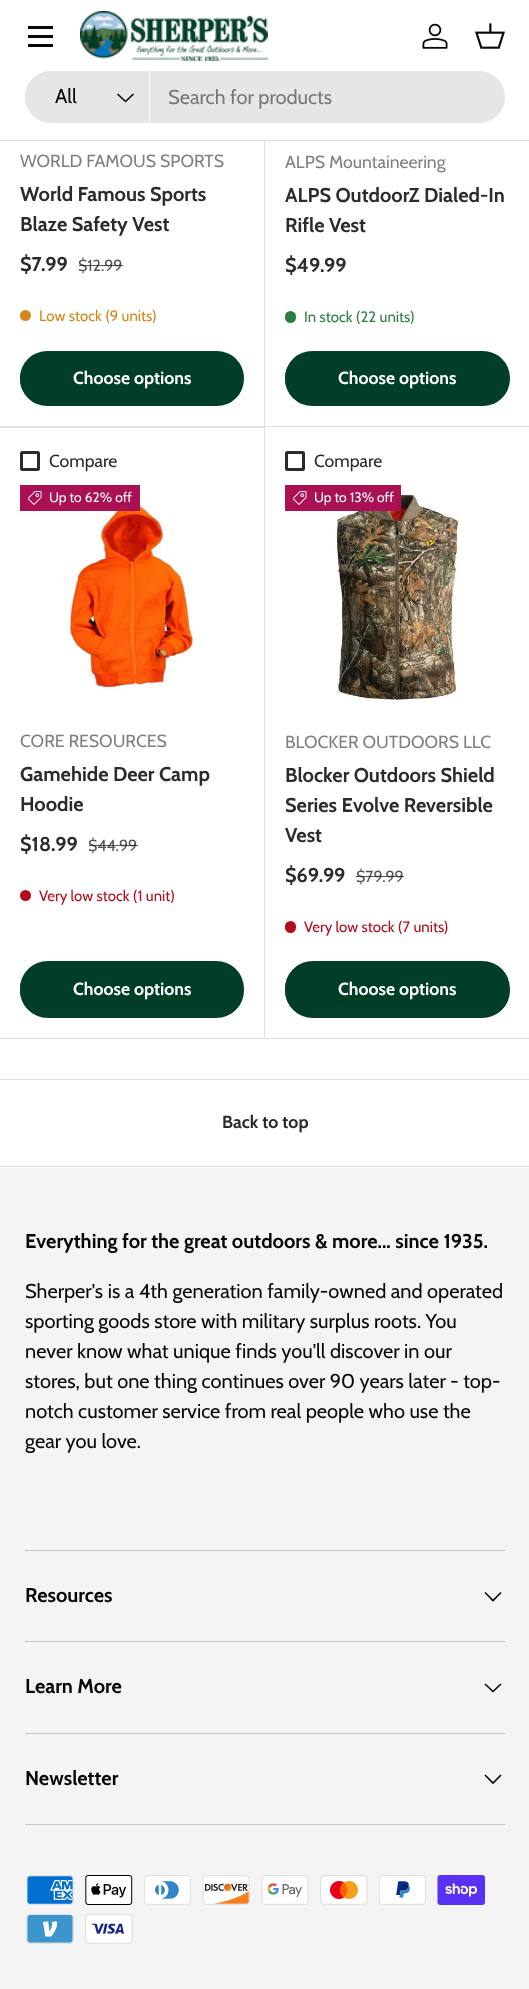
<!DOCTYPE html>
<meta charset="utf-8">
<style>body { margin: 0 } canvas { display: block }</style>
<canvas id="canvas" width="529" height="1989"></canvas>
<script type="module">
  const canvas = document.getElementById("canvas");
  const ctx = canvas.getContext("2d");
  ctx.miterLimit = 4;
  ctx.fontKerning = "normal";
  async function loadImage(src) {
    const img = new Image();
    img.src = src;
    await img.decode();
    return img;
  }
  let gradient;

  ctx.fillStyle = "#ffffff";
  ctx.fillRect(0, 0, 529, 1989);
  ctx.fillStyle = "#dfdfdf";
  ctx.beginPath();
  ctx.moveTo(265, -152);
  ctx.lineTo(265, 428);
  ctx.lineTo(264, 426);
  ctx.lineTo(264, -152);
  ctx.closePath();
  ctx.fill();
  ctx.fillStyle = "#ffffff";
  ctx.fillRect(264, 0, 1, 140);
  ctx.fillStyle = "#dadada";
  ctx.fillRect(0, 140, 529, 1);
  ctx.fillStyle = "#070707";
  ctx.fillRect(28, 26, 25, 3);
  ctx.fillRect(28, 44, 25, 3);
  ctx.fillRect(28, 35, 25, 3);
  ctx.drawImage(await loadImage("img1.png"), 80, 11, 188, 50);
  ctx.drawImage(await loadImage("img2.png"), 422, 23, 26, 26);
  ctx.drawImage(await loadImage("img3.png"), 475, 23, 30, 26);
  ctx.fillStyle = "#e6e6e6";
  ctx.beginPath();
  ctx.roundRect(25, 71, 480, 52, 26);
  ctx.fill();
  ctx.beginPath();
  ctx.roundRect(25, 71, 125, 52, [26, 0, 0, 26]);
  ctx.fill();
  ctx.fillStyle = "#ffffff";
  ctx.fillRect(149, 71, 1, 52);
  ctx.font = "20px Cabin";
  ctx.fillStyle = "#070707";
  ctx.fillText("All", 55, 103);
  ctx.beginPath();
  ctx.moveTo(133.5, 94);
  ctx.lineTo(125.5, 101.5);
  ctx.lineTo(117.5, 94);
  ctx.strokeStyle = "#070707";
  ctx.lineWidth = 1.6;
  ctx.stroke();
  ctx.fillStyle = "#777777";
  ctx.fillText("Search for products", 168, 104);
  ctx.fillStyle = "rgba(42, 43, 42, 0.15)";
  ctx.beginPath();
  ctx.moveTo(265, 428);
  ctx.lineTo(0, 428);
  ctx.lineTo(0, 426);
  ctx.lineTo(264, 426);
  ctx.closePath();
  ctx.fill();
  ctx.font = "17.6px Cabin";
  ctx.fillStyle = "#7f807f";
  ctx.fillText("WORLD FAMOUS SPORTS", 20, 167);
  ctx.font = "bold 20px Cabin";
  ctx.fillStyle = "#2a2b2a";
  ctx.fillText("World Famous Sports", 20, 201);
  ctx.fillText("Blaze Safety Vest", 20, 231);
  ctx.fillText("$7.99", 20, 271);
  ctx.font = "16px Cabin";
  ctx.fillStyle = "#555555";
  ctx.fillText("$12.99", 78, 271);
  ctx.fillStyle = "rgba(42, 43, 42, 0.8)";
  ctx.fillRect(79, 265, 44, 1);
  ctx.fillStyle = "#d2861a";
  ctx.beginPath();
  ctx.arc(25.5, 315.5, 5.5, 0, Math.PI * 2);
  ctx.fill();
  ctx.font = "15px Cabin";
  ctx.fillText("Low stock (9 units)", 39, 321);
  ctx.save();
  ctx.beginPath();
  ctx.roundRect(20, 351, 224, 55, 27.5);
  ctx.clip();
  gradient = ctx.createLinearGradient(-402, 300, 228, 457);
  gradient.addColorStop(0.6, "#2c664f");
  gradient.addColorStop(0.6, "#013e27");
  gradient.addColorStop(1, "#013e27");
  ctx.fillStyle = gradient;
  ctx.fillRect(20, 354, 221, 50);
  ctx.restore();
  ctx.beginPath();
  ctx.roundRect(21.5, 352.5, 221, 52, 26);
  ctx.strokeStyle = "#013e27";
  ctx.lineWidth = 3;
  ctx.stroke();
  ctx.font = "bold 17.6px Cabin";
  ctx.fillStyle = "#ffffff";
  ctx.fillText("Choose options", 73, 384);
  ctx.fillStyle = "#dfdfdf";
  ctx.fillRect(265, 426, 264, 1);
  ctx.font = "17.6px Cabin";
  ctx.fillStyle = "#7f807f";
  ctx.fillText("ALPS Mountaineering", 285, 168);
  ctx.font = "bold 20px Cabin";
  ctx.fillStyle = "#2a2b2a";
  ctx.fillText("ALPS OutdoorZ Dialed-In", 285, 202);
  ctx.fillText("Rifle Vest", 285, 232);
  ctx.fillText("$49.99", 285, 272);
  ctx.fillStyle = "#2c7e3f";
  ctx.beginPath();
  ctx.roundRect(285, 311, 11, 12, 5.5);
  ctx.fill();
  ctx.font = "15px Cabin";
  ctx.fillText("In stock (22 units)", 304, 322);
  ctx.save();
  ctx.beginPath();
  ctx.roundRect(285, 351, 225, 55, 27.5);
  ctx.clip();
  gradient = ctx.createLinearGradient(-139, 300, 494, 458);
  gradient.addColorStop(0.6, "#2c664f");
  gradient.addColorStop(0.6, "#013e27");
  gradient.addColorStop(1, "#013e27");
  ctx.fillStyle = gradient;
  ctx.fillRect(285, 354, 223, 50);
  ctx.restore();
  ctx.beginPath();
  ctx.roundRect(286.5, 352.5, 222, 52, 26);
  ctx.stroke();
  ctx.font = "bold 17.6px Cabin";
  ctx.fillStyle = "#ffffff";
  ctx.fillText("Choose options", 338, 384);
  ctx.fillStyle = "#dfdfdf";
  ctx.beginPath();
  ctx.moveTo(265, 428);
  ctx.lineTo(265, 1039);
  ctx.lineTo(264, 1038);
  ctx.lineTo(264, 428);
  ctx.closePath();
  ctx.fill();
  ctx.fillStyle = "rgba(42, 43, 42, 0.15)";
  ctx.beginPath();
  ctx.moveTo(265, 1039);
  ctx.lineTo(0, 1039);
  ctx.lineTo(0, 1038);
  ctx.lineTo(264, 1038);
  ctx.closePath();
  ctx.fill();
  ctx.beginPath();
  ctx.roundRect(21.5, 452.5, 17, 17, 1);
  ctx.strokeStyle = "#2a2b2a";
  ctx.stroke();
  ctx.font = "17.6px Cabin";
  ctx.fillStyle = "#2a2b2a";
  ctx.fillText("Compare", 49, 467);
  ctx.drawImage(await loadImage("img5.png"), 69, 492, 126, 199);
  ctx.fillStyle = "#aa1155";
  ctx.fillRect(20, 485, 120, 26);
  ctx.drawImage(await loadImage("img4.png"), 28, 491, 14, 14);
  ctx.font = "13.75px Cabin";
  ctx.fillStyle = "#ffffff";
  ctx.fillText("Up to 62% off", 49, 502);
  ctx.font = "17.6px Cabin";
  ctx.fillStyle = "#7f807f";
  ctx.fillText("CORE RESOURCES", 20, 747);
  ctx.font = "bold 20px Cabin";
  ctx.fillStyle = "#2a2b2a";
  ctx.fillText("Gamehide Deer Camp", 20, 781);
  ctx.fillText("Hoodie", 20, 811);
  ctx.fillText("$18.99", 20, 851);
  ctx.font = "16px Cabin";
  ctx.fillStyle = "#555555";
  ctx.fillText("$44.99", 88, 851);
  ctx.fillStyle = "rgba(42, 43, 42, 0.8)";
  ctx.fillRect(89, 845, 49, 1);
  ctx.fillStyle = "#b40c1c";
  ctx.beginPath();
  ctx.arc(25.5, 895.5, 5.5, 0, Math.PI * 2);
  ctx.fill();
  ctx.font = "15px Cabin";
  ctx.fillText("Very low stock (1 unit)", 39, 901);
  ctx.save();
  ctx.beginPath();
  ctx.roundRect(20, 961, 224, 57, 28);
  ctx.clip();
  gradient = ctx.createLinearGradient(-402, 911, 228, 1068);
  gradient.addColorStop(0.6, "#2c664f");
  gradient.addColorStop(0.6, "#013e27");
  gradient.addColorStop(1, "#013e27");
  ctx.fillStyle = gradient;
  ctx.fillRect(20, 964, 221, 51);
  ctx.restore();
  ctx.beginPath();
  ctx.roundRect(21.5, 962.5, 221, 54, 26.5);
  ctx.strokeStyle = "#013e27";
  ctx.stroke();
  ctx.font = "bold 17.6px Cabin";
  ctx.fillStyle = "#ffffff";
  ctx.fillText("Choose options", 73, 995);
  ctx.fillStyle = "#dfdfdf";
  ctx.fillRect(265, 1038, 264, 1);
  ctx.beginPath();
  ctx.roundRect(286.5, 452.5, 17, 17, 1);
  ctx.strokeStyle = "#2a2b2a";
  ctx.stroke();
  ctx.font = "17.6px Cabin";
  ctx.fillStyle = "#2a2b2a";
  ctx.fillText("Compare", 314, 467);
  ctx.drawImage(await loadImage("img6.png"), 335, 491, 125, 210);
  ctx.fillStyle = "#aa1155";
  ctx.fillRect(285, 485, 116, 26);
  ctx.drawImage(await loadImage("img4.png"), 293, 491, 14, 14);
  ctx.font = "13.75px Cabin";
  ctx.fillStyle = "#ffffff";
  ctx.fillText("Up to 13% off", 314, 502);
  ctx.font = "17.6px Cabin";
  ctx.fillStyle = "#7f807f";
  ctx.fillText("BLOCKER OUTDOORS LLC", 285, 748);
  ctx.font = "bold 20px Cabin";
  ctx.fillStyle = "#2a2b2a";
  ctx.fillText("Blocker Outdoors Shield", 285, 782);
  ctx.fillText("Series Evolve Reversible", 285, 812);
  ctx.fillText("Vest", 285, 842);
  ctx.fillText("$69.99", 285, 882);
  ctx.font = "16px Cabin";
  ctx.fillStyle = "#555555";
  ctx.fillText("$79.99", 356, 882);
  ctx.fillStyle = "rgba(42, 43, 42, 0.8)";
  ctx.fillRect(356, 876, 48, 1);
  ctx.fillStyle = "#b40c1c";
  ctx.beginPath();
  ctx.roundRect(285, 921, 11, 12, 5.5);
  ctx.fill();
  ctx.font = "15px Cabin";
  ctx.fillText("Very low stock (7 units)", 304, 932);
  ctx.save();
  ctx.beginPath();
  ctx.roundRect(285, 961, 225, 57, 28);
  ctx.clip();
  gradient = ctx.createLinearGradient(-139, 910, 494, 1068);
  gradient.addColorStop(0.6, "#2c664f");
  gradient.addColorStop(0.6, "#013e27");
  gradient.addColorStop(1, "#013e27");
  ctx.fillStyle = gradient;
  ctx.fillRect(285, 964, 223, 51);
  ctx.restore();
  ctx.beginPath();
  ctx.roundRect(286.5, 962.5, 222, 54, 26.5);
  ctx.strokeStyle = "#013e27";
  ctx.stroke();
  ctx.font = "bold 17.6px Cabin";
  ctx.fillStyle = "#ffffff";
  ctx.fillText("Choose options", 338, 995);
  ctx.fillStyle = "#dfdfdf";
  ctx.fillRect(0, 1079, 529, 1);
  ctx.fillRect(0, 1166, 529, 1);
  ctx.fillStyle = "#2a2b2a";
  ctx.fillText("Back to top", 222, 1128);
  ctx.fillStyle = "#f4f4f4";
  ctx.fillRect(0, 1168, 529, 821);
  ctx.font = "bold 20px Cabin";
  ctx.fillStyle = "#070707";
  ctx.fillText("Everything for the great outdoors & more... since 1935.", 25, 1248);
  ctx.font = "20px Cabin";
  ctx.fillText("Sherper's is a 4th generation family-owned and operated", 25, 1298);
  ctx.fillText("sporting goods store with military surplus roots. You", 25, 1328);
  ctx.fillText("never know what unique finds you'll discover in our", 25, 1358);
  ctx.fillText("stores, but one thing continues over 90 years later - top-", 25, 1388);
  ctx.fillText("notch customer service from real people who use the", 25, 1418);
  ctx.fillText("gear you love.", 25, 1448);
  ctx.fillStyle = "#c5c5c5";
  ctx.fillRect(25, 1550, 480, 1);
  ctx.fillRect(25, 1641, 480, 1);
  ctx.font = "bold 20px Cabin";
  ctx.fillStyle = "#070707";
  ctx.fillText("Resources", 25, 1602);
  ctx.beginPath();
  ctx.moveTo(501, 1592.5);
  ctx.lineTo(493, 1600.5);
  ctx.lineTo(485, 1592.5);
  ctx.strokeStyle = "#070707";
  ctx.lineWidth = 1.6;
  ctx.stroke();
  ctx.fillStyle = "#c5c5c5";
  ctx.fillRect(25, 1733, 480, 1);
  ctx.fillStyle = "#070707";
  ctx.fillText("Learn More", 25, 1693);
  ctx.beginPath();
  ctx.moveTo(501, 1684);
  ctx.lineTo(493, 1691.5);
  ctx.lineTo(485, 1684);
  ctx.stroke();
  ctx.fillStyle = "#c5c5c5";
  ctx.fillRect(25, 1824, 480, 1);
  ctx.fillStyle = "#070707";
  ctx.fillText("Newsletter", 25, 1785);
  ctx.beginPath();
  ctx.moveTo(501, 1775);
  ctx.lineTo(493, 1783);
  ctx.lineTo(485, 1775);
  ctx.stroke();
  ctx.drawImage(await loadImage("img7.png"), 26, 1875, 48, 30);
  ctx.drawImage(await loadImage("img8.png"), 85, 1875, 48, 30);
  ctx.drawImage(await loadImage("img9.png"), 144, 1875, 47, 30);
  ctx.drawImage(await loadImage("img10.png"), 202, 1875, 48, 30);
  ctx.drawImage(await loadImage("img11.png"), 261, 1875, 48, 30);
  ctx.drawImage(await loadImage("img12.png"), 320, 1875, 48, 30);
  ctx.drawImage(await loadImage("img13.png"), 379, 1875, 47, 30);
  ctx.drawImage(await loadImage("img14.png"), 437, 1875, 48, 30);
  ctx.drawImage(await loadImage("img15.png"), 26, 1914, 48, 30);
  ctx.drawImage(await loadImage("img16.png"), 85, 1914, 48, 30);
</script>
